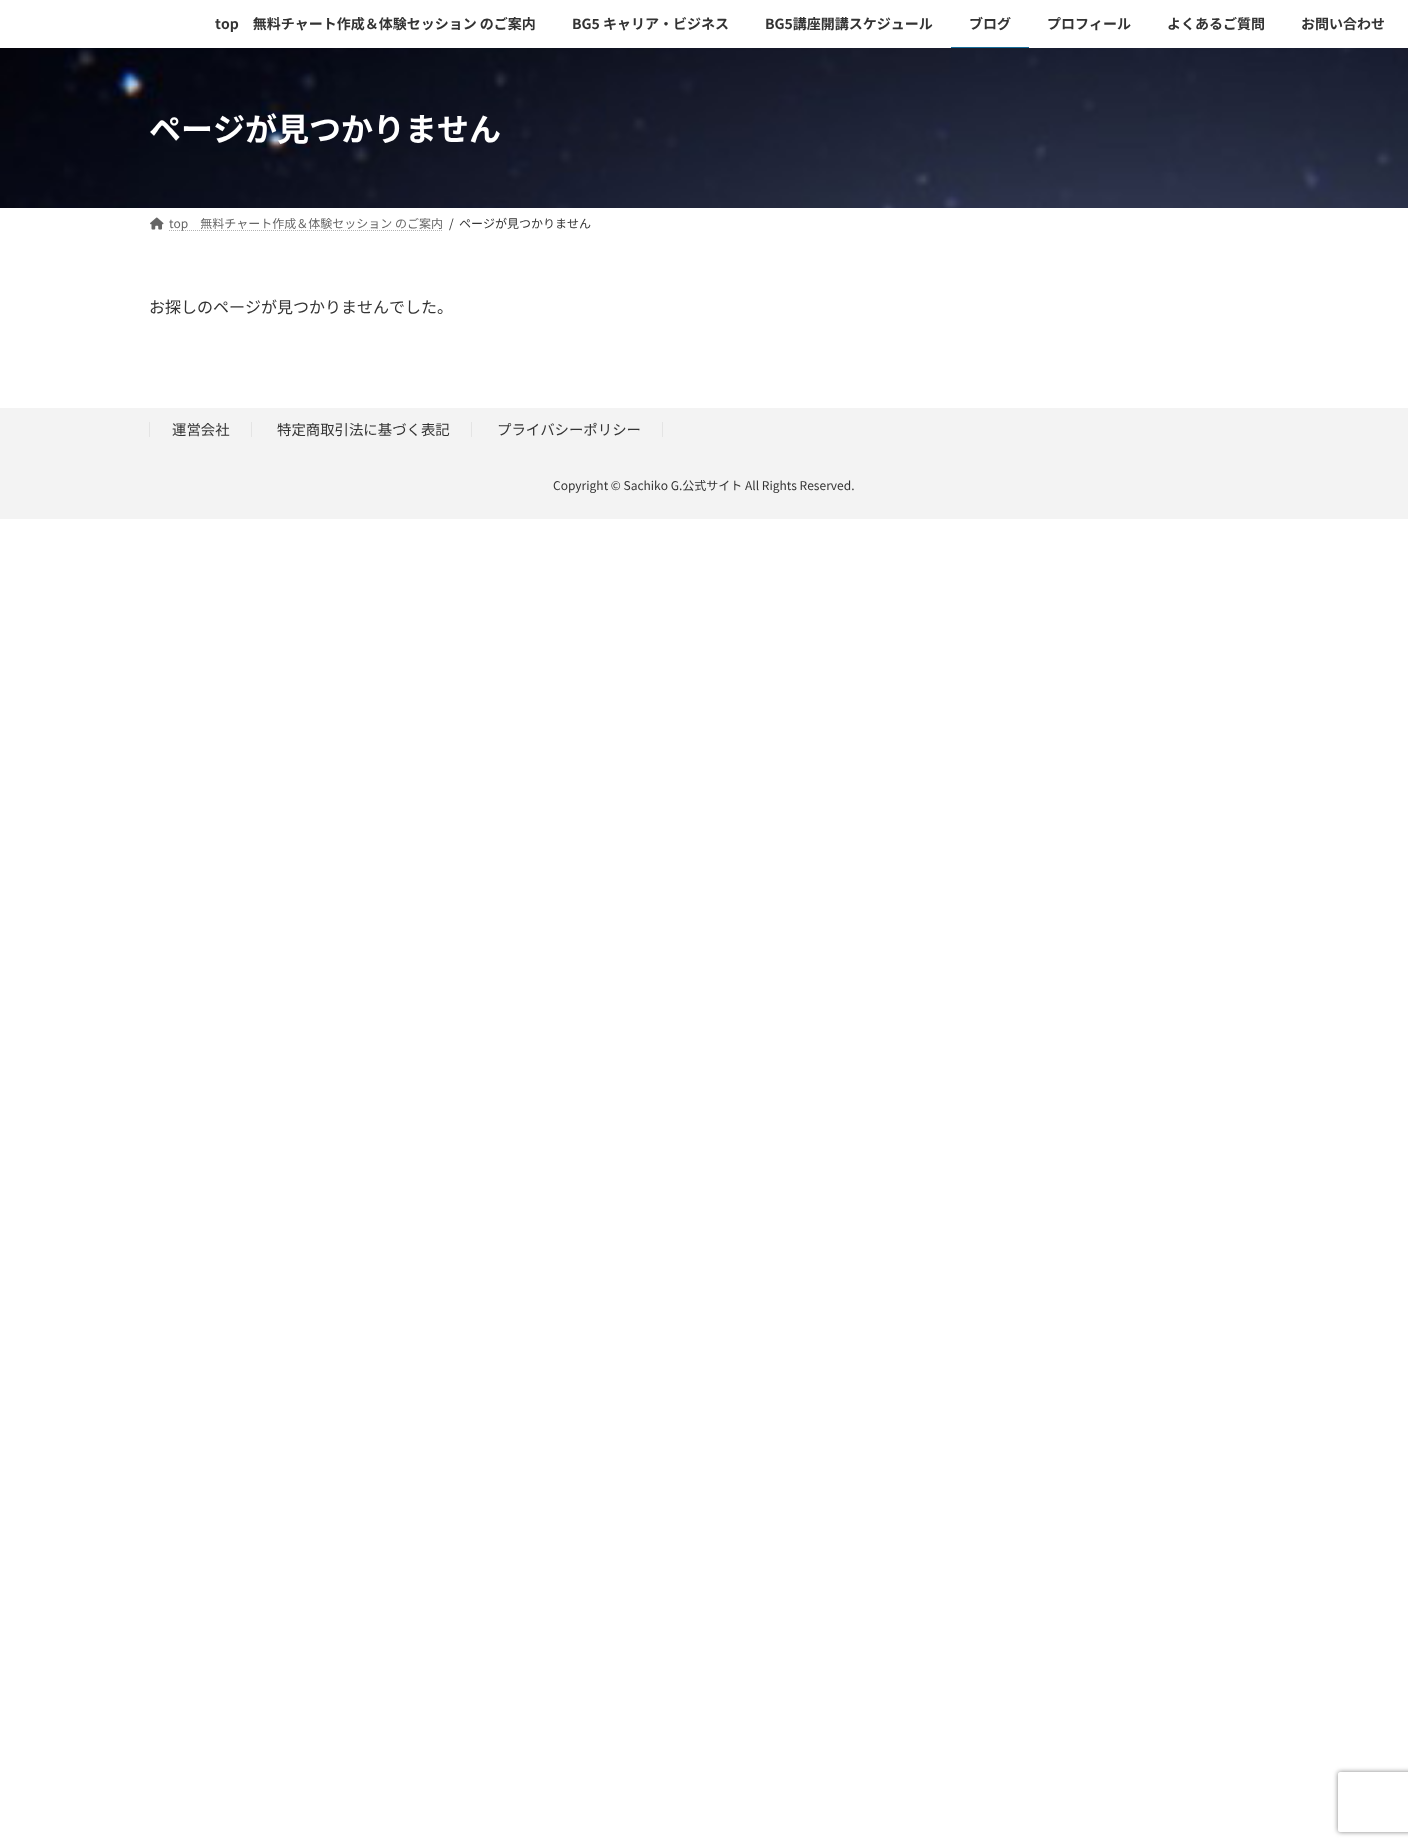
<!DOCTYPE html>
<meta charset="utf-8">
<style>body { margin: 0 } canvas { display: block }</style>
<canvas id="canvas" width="1408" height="1846"></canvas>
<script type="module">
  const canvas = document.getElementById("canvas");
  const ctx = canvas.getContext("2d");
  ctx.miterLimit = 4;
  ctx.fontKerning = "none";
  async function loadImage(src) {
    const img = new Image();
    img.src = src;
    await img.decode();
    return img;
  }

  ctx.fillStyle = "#ffffff";
  ctx.fillRect(0, 0, 1408, 1846);
  ctx.font = "bold 14px Noto Sans JP";
  ctx.fillStyle = "#333333";
  ctx.fillText("top　無料チャート作成＆体験セッション のご案内", 215, 29);
  ctx.fillText("BG5 キャリア・ビジネス", 572, 29);
  ctx.fillText("BG5講座開講スケジュール", 765, 29);
  ctx.fillText("ブログ", 969, 29);
  ctx.fillStyle = "#186f9b";
  ctx.fillRect(951, 47, 78, 1);
  ctx.fillStyle = "#333333";
  ctx.fillText("プロフィール", 1047, 29);
  ctx.fillText("よくあるご質問", 1167, 29);
  ctx.fillText("お問い合わせ", 1301, 29);
  ctx.drawImage(await loadImage("img1.png"), 0, 48, 1408, 160);
  ctx.font = "bold 32px Noto Sans JP";
  ctx.fillStyle = "#ffffff";
  ctx.fillText("ページが見つかりません", 149, 141);
  ctx.drawImage(await loadImage("img2.png"), 150, 217, 14, 13);
  ctx.beginPath();
  ctx.moveTo(169, 230.5);
  ctx.lineTo(442.5, 230.5);
  ctx.strokeStyle = "#b3b3b3";
  ctx.setLineDash([1, 1]);
  ctx.stroke();
  ctx.font = "12px Noto Sans JP";
  ctx.fillStyle = "#666666";
  ctx.fillText("top　無料チャート作成＆体験セッション のご案内", 169, 228);
  ctx.fillStyle = "#333333";
  ctx.fillText("/", 449, 228);
  ctx.fillText("ページが見つかりません", 459, 228);
  ctx.font = "16px Noto Sans JP";
  ctx.fillText("お探しのページが見つかりませんでした。", 149, 313);
  ctx.fillStyle = "#f3f3f3";
  ctx.fillRect(0, 408, 1408, 111);
  ctx.fillStyle = "#e4e4e4";
  ctx.fillRect(251, 422, 1, 15);
  ctx.fillRect(149, 422, 1, 15);
  ctx.font = "14.4px Noto Sans JP";
  ctx.fillStyle = "#333333";
  ctx.fillText("運営会社", 172, 435);
  ctx.fillStyle = "#e4e4e4";
  ctx.fillRect(471, 422, 1, 15);
  ctx.fillStyle = "#333333";
  ctx.fillText("特定商取引法に基づく表記", 277, 435);
  ctx.fillStyle = "#e4e4e4";
  ctx.fillRect(662, 422, 1, 15);
  ctx.fillStyle = "#333333";
  ctx.fillText("プライバシーポリシー", 497, 435);
  ctx.font = "12px Noto Sans JP";
  ctx.fillText("Copyright © Sachiko G.公式サイト All Rights Reserved.", 553, 490);
  ctx.save();
  ctx.beginPath();
  ctx.moveTo(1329, 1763);
  ctx.lineTo(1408, 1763);
  ctx.lineTo(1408, 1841);
  ctx.lineTo(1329, 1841);
  ctx.closePath();
  ctx.moveTo(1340, 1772);
  ctx.lineTo(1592, 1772);
  ctx.bezierCurveTo(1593, 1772, 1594, 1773, 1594, 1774);
  ctx.lineTo(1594, 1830);
  ctx.bezierCurveTo(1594, 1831, 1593, 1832, 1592, 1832);
  ctx.lineTo(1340, 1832);
  ctx.bezierCurveTo(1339, 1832, 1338, 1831, 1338, 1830);
  ctx.lineTo(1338, 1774);
  ctx.bezierCurveTo(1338, 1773, 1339, 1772, 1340, 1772);
  ctx.closePath();
  ctx.clip("evenodd");
  ctx.fillStyle = "#808080";
  ctx.filter = "blur(2.5px)";
  ctx.beginPath();
  ctx.roundRect(1338, 1772, 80, 60, 2);
  ctx.fill();
  ctx.filter = "none";
  ctx.restore();
</script>
